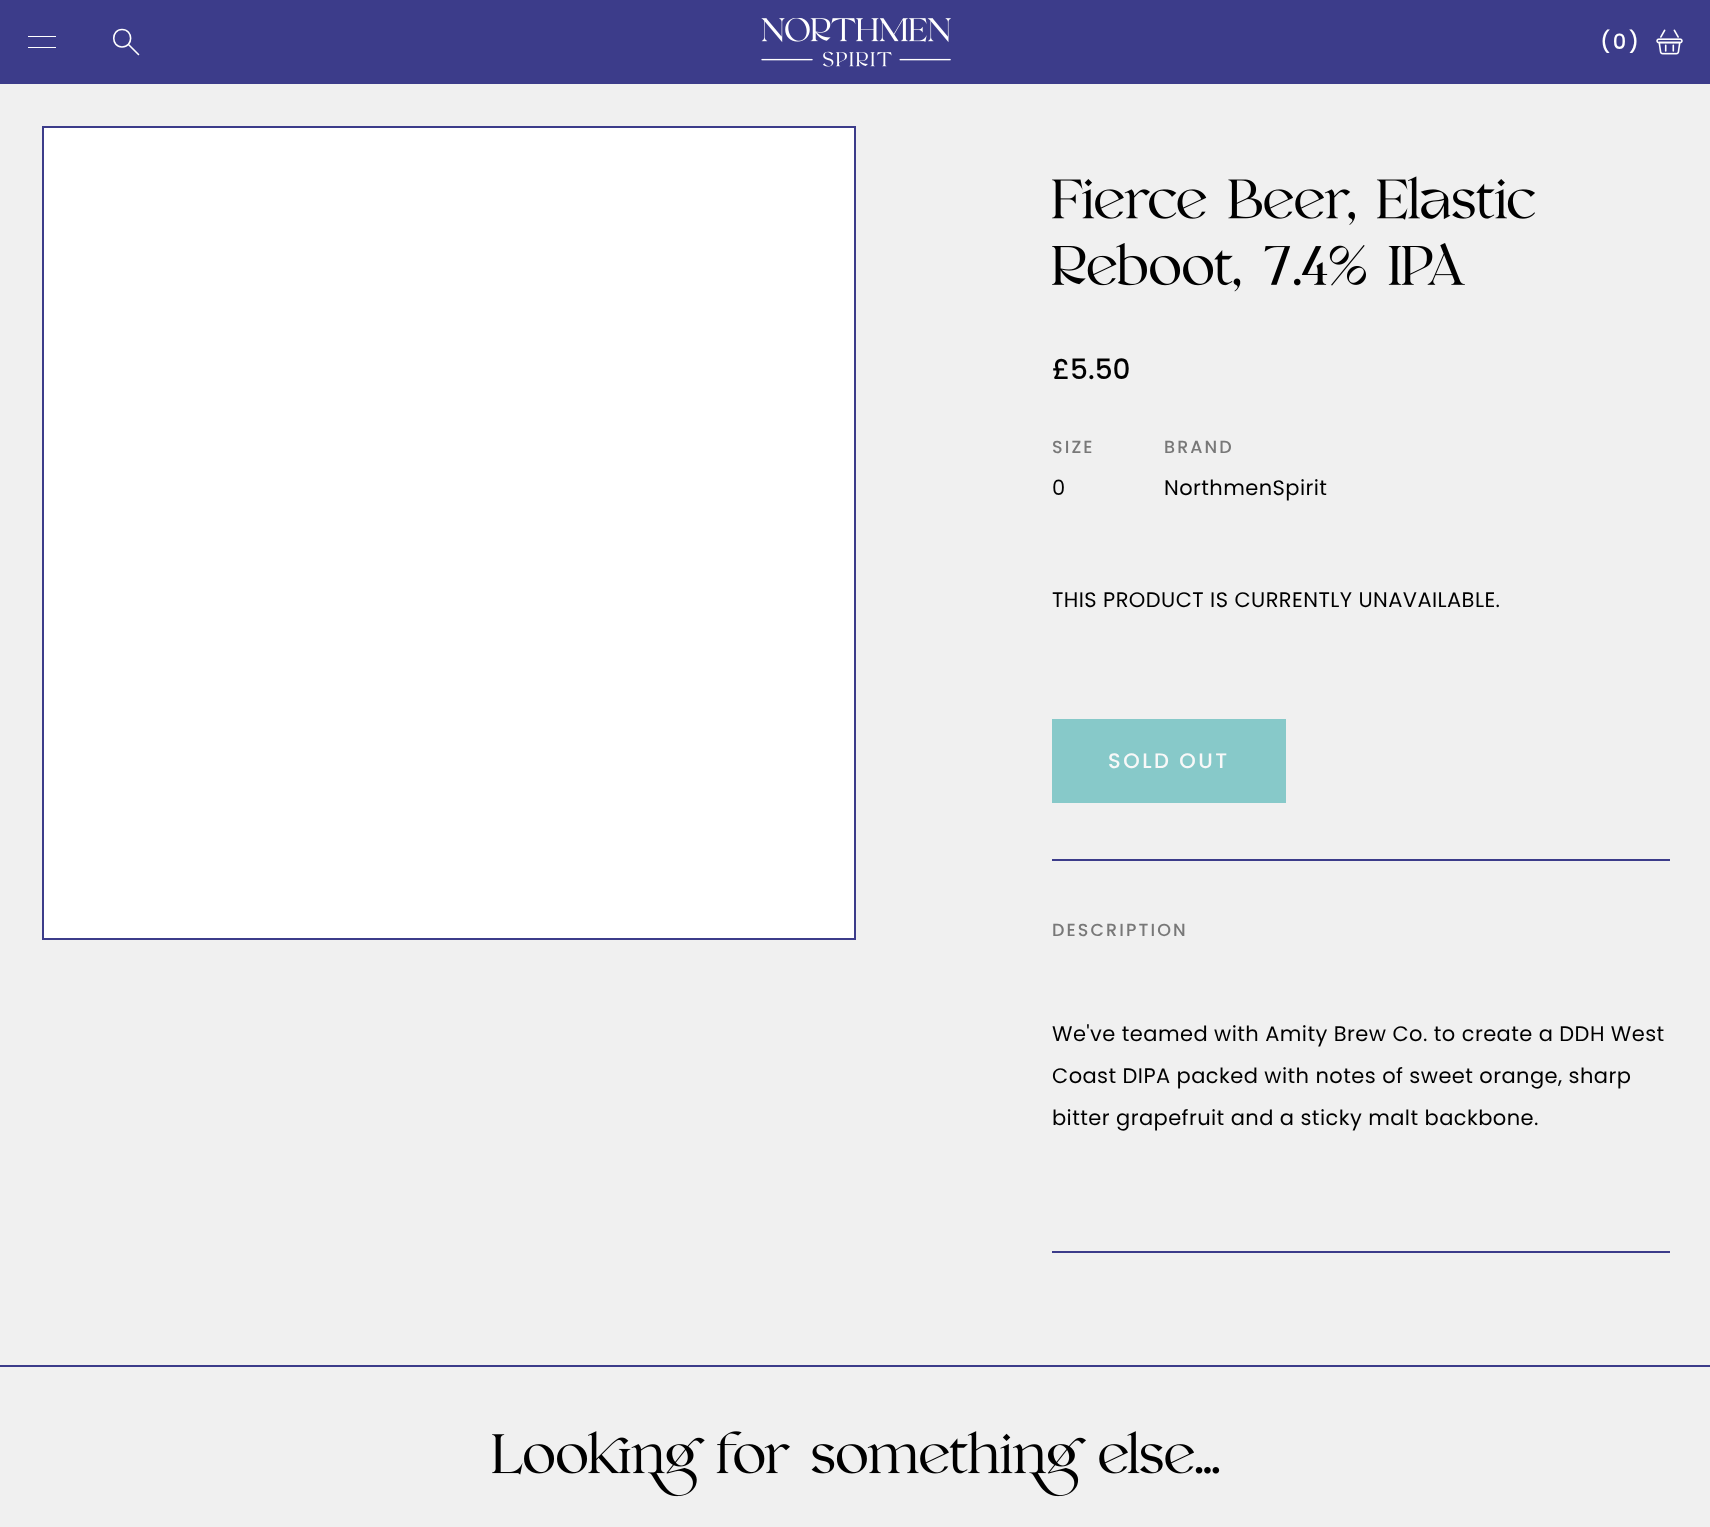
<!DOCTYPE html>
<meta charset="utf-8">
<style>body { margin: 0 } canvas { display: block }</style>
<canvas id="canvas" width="1710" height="1527"></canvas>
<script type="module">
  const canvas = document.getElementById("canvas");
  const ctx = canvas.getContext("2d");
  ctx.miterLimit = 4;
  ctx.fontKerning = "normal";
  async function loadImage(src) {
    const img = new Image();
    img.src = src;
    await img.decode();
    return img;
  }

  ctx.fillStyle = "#f0f0f0";
  ctx.fillRect(0, 0, 1710, 1527);
  ctx.fillStyle = "#3c3c8a";
  ctx.fillRect(0, 0, 1710, 84);
  ctx.fillStyle = "#ffffff";
  ctx.fillRect(28, 36, 28, 1);
  ctx.fillRect(28, 47, 28, 1);
  ctx.beginPath();
  ctx.moveTo(122, 47);
  ctx.bezierCurveTo(133.5, 47, 133.5, 29.5, 122, 29.5);
  ctx.bezierCurveTo(111, 29.5, 111, 47, 122, 47);
  ctx.closePath();
  ctx.moveTo(128.5, 44.5);
  ctx.lineTo(138.5, 54.5);
  ctx.strokeStyle = "#ffffff";
  ctx.lineWidth = 1.6;
  ctx.lineCap = "round";
  ctx.lineJoin = "round";
  ctx.stroke();
  ctx.drawImage(await loadImage("img1.png"), 761, 18, 190, 49);
  ctx.letterSpacing = "2.5px";
  ctx.font = "500 21px Poppins";
  ctx.fillText("(0)", 1600, 49);
  ctx.drawImage(await loadImage("img2.png"), 1656, 29, 27, 26);
  ctx.fillStyle = "#3c3c8a";
  ctx.fillRect(0, 1365, 1710, 2);
  ctx.strokeStyle = "#3c3c8a";
  ctx.lineWidth = 2;
  ctx.lineJoin = "miter";
  ctx.strokeRect(43, 127, 812, 812);
  ctx.fillStyle = "#ffffff";
  ctx.fillRect(44, 128, 810, 810);
  ctx.drawImage(await loadImage("img3.png"), 1052, 176, 483, 49);
  ctx.drawImage(await loadImage("img4.png"), 1052, 243, 413, 49);
  ctx.letterSpacing = "0px";
  ctx.font = "500 28px Poppins";
  ctx.fillStyle = "#000000";
  ctx.fillText("£5.50", 1052, 379);
  ctx.letterSpacing = "2.1px";
  ctx.font = "500 17.5px Poppins";
  ctx.fillStyle = "#787878";
  ctx.fillText("SIZE", 1052, 453);
  ctx.letterSpacing = "0.42px";
  ctx.font = "21px Poppins";
  ctx.fillStyle = "#000000";
  ctx.fillText("0", 1052, 495);
  ctx.letterSpacing = "2.1px";
  ctx.font = "500 17.5px Poppins";
  ctx.fillStyle = "#787878";
  ctx.fillText("BRAND", 1164, 453);
  ctx.letterSpacing = "0.42px";
  ctx.font = "21px Poppins";
  ctx.fillStyle = "#000000";
  ctx.fillText("NorthmenSpirit", 1164, 495);
  ctx.fillText("THIS PRODUCT IS CURRENTLY UNAVAILABLE.", 1052, 607);
  ctx.fillStyle = "#87c9c9";
  ctx.fillRect(1052, 719, 234, 84);
  ctx.letterSpacing = "2.5px";
  ctx.font = "500 21px Poppins";
  ctx.fillStyle = "#f8f8f8";
  ctx.fillText("SOLD OUT", 1108, 768);
  ctx.fillStyle = "#3c3c8a";
  ctx.fillRect(1052, 859, 618, 2);
  ctx.fillRect(1052, 1251, 618, 2);
  ctx.letterSpacing = "2.1px";
  ctx.font = "500 17.5px Poppins";
  ctx.fillStyle = "#787878";
  ctx.fillText("DESCRIPTION", 1052, 936);
  ctx.letterSpacing = "0.42px";
  ctx.font = "21px Poppins";
  ctx.fillStyle = "#000000";
  ctx.fillText("We've teamed with Amity Brew Co. to create a DDH West", 1052, 1041);
  ctx.fillText("Coast DIPA packed with notes of sweet orange, sharp", 1052, 1083);
  ctx.fillText("bitter grapefruit and a sticky malt backbone.", 1052, 1125);
  ctx.drawImage(await loadImage("img5.png"), 492, 1431, 728, 66);
</script>
